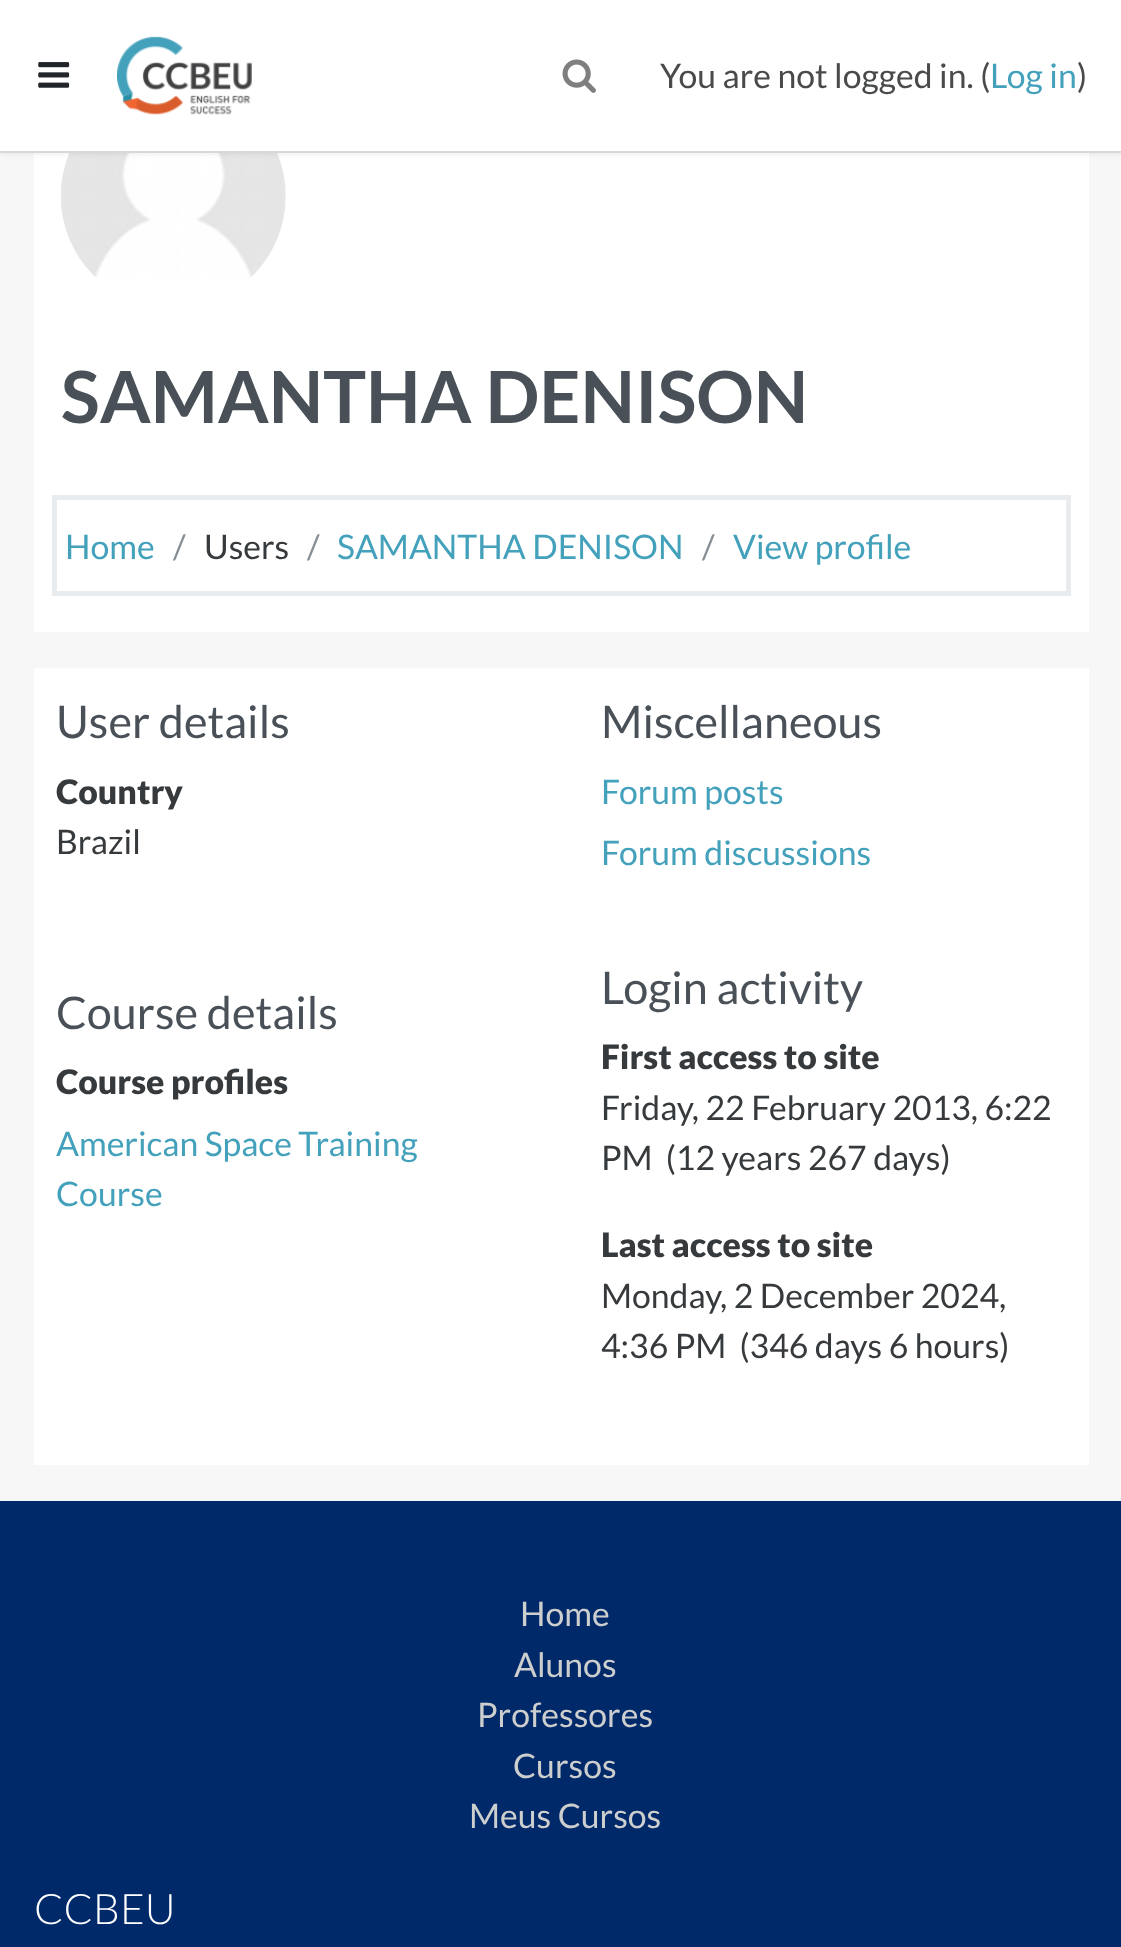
<!DOCTYPE html>
<meta charset="utf-8">
<style>body { margin: 0 } canvas { display: block }</style>
<canvas id="canvas" width="1121" height="1947"></canvas>
<script type="module">
  const canvas = document.getElementById("canvas");
  const ctx = canvas.getContext("2d");
  ctx.miterLimit = 4;
  ctx.fontKerning = "normal";
  async function loadImage(src) {
    const img = new Image();
    img.src = src;
    await img.decode();
    return img;
  }

  ctx.fillStyle = "#f7f7f7";
  ctx.fillRect(0, 0, 1121, 1947);
  ctx.fillStyle = "#ffffff";
  ctx.fillRect(34, 153, 1055, 479);
  ctx.drawImage(await loadImage("img4.png"), 61, 153, 225, 125);
  ctx.fillStyle = "rgba(0, 0, 0, 0.05)";
  ctx.filter = "blur(2px)";
  ctx.beginPath();
  ctx.rect(0, 2, 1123, 153);
  ctx.fill();
  ctx.filter = "none";
  ctx.fillStyle = "#ffffff";
  ctx.fillRect(0, 0, 1121, 151);
  ctx.fillStyle = "#d8d8d8";
  ctx.fillRect(0, 151, 1121, 2);
  ctx.drawImage(await loadImage("img1.png"), 38, 62, 32, 26);
  ctx.drawImage(await loadImage("img2.png"), 117, 36, 135, 79);
  ctx.drawImage(await loadImage("img3.png"), 562, 59, 34, 34);
  ctx.font = "33.75px Lato";
  ctx.fillStyle = "#484b49";
  ctx.fillText("You are not logged in. (", 660, 88);
  ctx.fillStyle = "#44a1bb";
  ctx.fillText("Log in", 990, 88);
  ctx.fillStyle = "#484b49";
  ctx.fillText(")", 1077, 88);
  ctx.font = "bold 72px Lato";
  ctx.fillStyle = "#495057";
  ctx.fillText("SAMANTHA DENISON", 61, 423);
  ctx.strokeStyle = "#e9ecef";
  ctx.lineWidth = 5;
  ctx.strokeRect(54.5, 497.5, 1014, 96);
  ctx.font = "33.75px Lato";
  ctx.fillStyle = "#44a1bb";
  ctx.fillText("Home", 65, 559);
  ctx.fillStyle = "#868e96";
  ctx.fillText("/", 173, 559);
  ctx.fillStyle = "#373a3c";
  ctx.fillText("Users", 204, 559);
  ctx.fillStyle = "#868e96";
  ctx.fillText("/", 307, 559);
  ctx.fillStyle = "#44a1bb";
  ctx.fillText("SAMANTHA DENISON", 337, 559);
  ctx.fillStyle = "#868e96";
  ctx.fillText("/", 702, 559);
  ctx.fillStyle = "#44a1bb";
  ctx.fillText("View profile", 733, 559);
  ctx.fillStyle = "#ffffff";
  ctx.fillRect(34, 668, 1055, 797);
  ctx.font = "45px Lato";
  ctx.fillStyle = "#495057";
  ctx.fillText("User details", 56, 738);
  ctx.font = "900 33.75px Lato";
  ctx.fillStyle = "#373a3c";
  ctx.fillText("Country", 56, 804);
  ctx.font = "33.75px Lato";
  ctx.fillText("Brazil", 56, 854);
  ctx.font = "45px Lato";
  ctx.fillStyle = "#495057";
  ctx.fillText("Miscellaneous", 601, 738);
  ctx.font = "33.75px Lato";
  ctx.fillStyle = "#44a1bb";
  ctx.fillText("Forum posts", 601, 804);
  ctx.fillText("Forum discussions", 601, 865);
  ctx.font = "45px Lato";
  ctx.fillStyle = "#495057";
  ctx.fillText("Course details", 56, 1029);
  ctx.font = "900 33.75px Lato";
  ctx.fillStyle = "#373a3c";
  ctx.fillText("Course profiles", 56, 1094);
  ctx.font = "33.75px Lato";
  ctx.fillStyle = "#44a1bb";
  ctx.fillText("American Space Training", 56, 1156);
  ctx.fillText("Course", 56, 1206);
  ctx.font = "45px Lato";
  ctx.fillStyle = "#495057";
  ctx.fillText("Login activity", 601, 1004);
  ctx.font = "900 33.75px Lato";
  ctx.fillStyle = "#373a3c";
  ctx.fillText("First access to site", 601, 1069);
  ctx.font = "33.75px Lato";
  ctx.fillText("Friday, 22 February 2013, 6:22", 601, 1120);
  ctx.fillText("PM  (12 years 267 days)", 601, 1170);
  ctx.font = "900 33.75px Lato";
  ctx.fillText("Last access to site", 601, 1257);
  ctx.font = "33.75px Lato";
  ctx.fillText("Monday, 2 December 2024,", 601, 1308);
  ctx.fillText("4:36 PM  (346 days 6 hours)", 601, 1358);
  ctx.fillStyle = "#002969";
  ctx.fillRect(0, 1501, 1121, 446);
  ctx.fillStyle = "#cdcece";
  ctx.fillText("Home", 520, 1626);
  ctx.fillText("Alunos", 514, 1677);
  ctx.fillText("Professores", 477, 1727);
  ctx.fillText("Cursos", 513, 1778);
  ctx.fillText("Meus Cursos", 469, 1828);
  ctx.font = "300 42px Lato";
  ctx.fillStyle = "#ffffff";
  ctx.fillText("CCBEU", 34, 1924);
</script>
